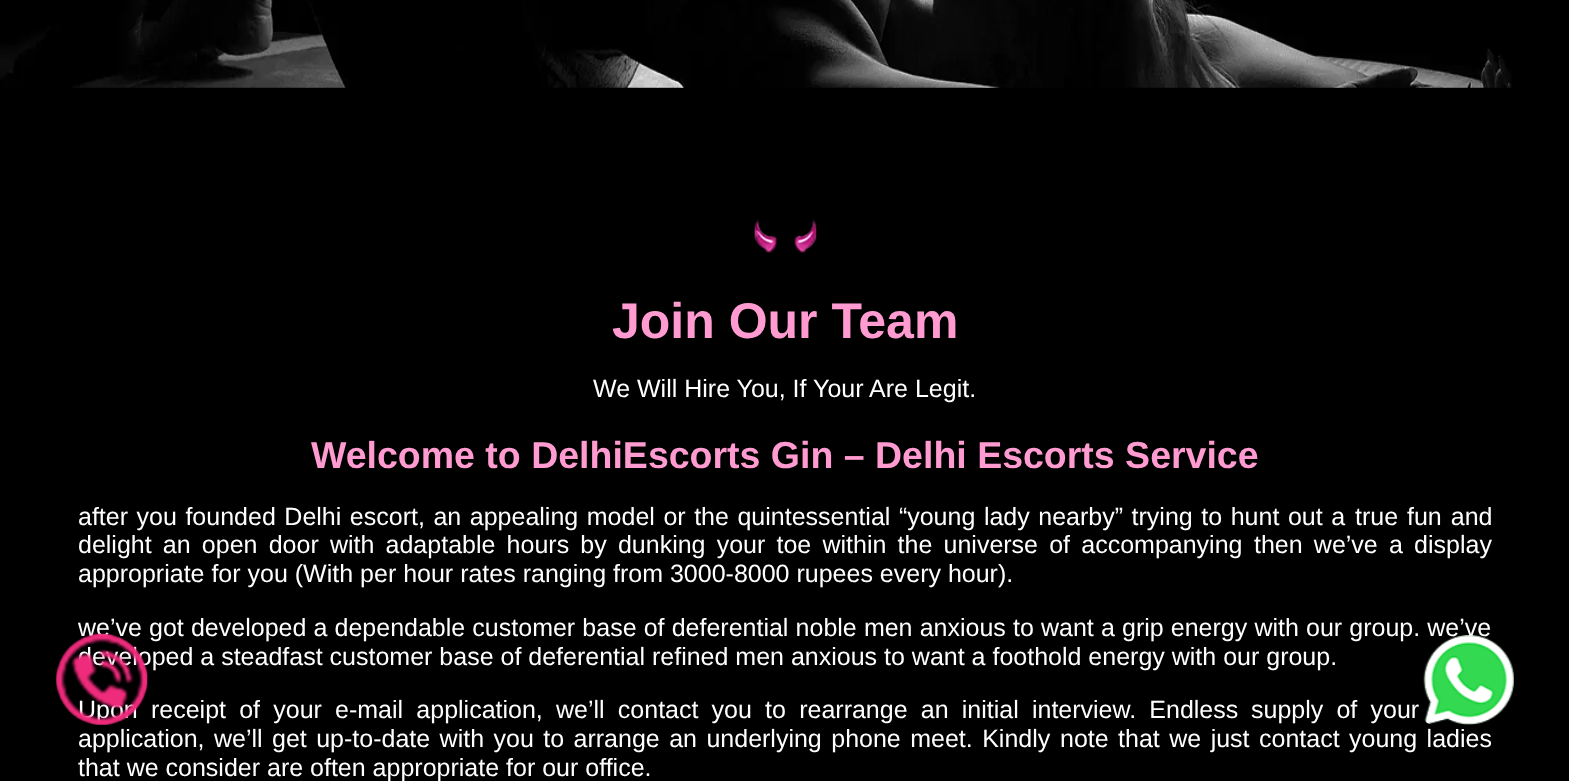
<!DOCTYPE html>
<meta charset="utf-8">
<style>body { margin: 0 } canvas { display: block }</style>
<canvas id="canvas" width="1569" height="781"></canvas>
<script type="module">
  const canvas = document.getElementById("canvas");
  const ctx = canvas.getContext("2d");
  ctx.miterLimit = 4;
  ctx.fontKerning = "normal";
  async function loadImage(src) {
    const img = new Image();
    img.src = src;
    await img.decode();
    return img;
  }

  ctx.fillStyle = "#000000";
  ctx.fillRect(0, 0, 1569, 781);
  ctx.drawImage(await loadImage("img1.png"), 0, 0, 1512, 88);
  ctx.drawImage(await loadImage("img2.png"), 754, 219, 63, 34);
  ctx.font = "bold 50px Liberation Sans";
  ctx.fillStyle = "#ff9bd0";
  ctx.fillText("Join Our Team", 612, 338);
  ctx.font = "25px Liberation Sans";
  ctx.fillStyle = "#ffffff";
  ctx.fillText("We Will Hire You, If Your Are Legit.", 593, 397);
  ctx.font = "bold 37.5px Liberation Sans";
  ctx.fillStyle = "#ff9bd0";
  ctx.fillText("Welcome to DelhiEscorts Gin – Delhi Escorts Service", 311, 468);
  ctx.wordSpacing = "1.6px";
  ctx.font = "25px Liberation Sans";
  ctx.fillStyle = "#ffffff";
  ctx.fillText("after you founded Delhi escort, an appealing model or the quintessential “young lady nearby” trying to hunt out a", 78, 525);
  ctx.wordSpacing = "2px";
  ctx.fillText("true fun and", 1355, 525);
  ctx.wordSpacing = "4.25px";
  ctx.fillText("delight an open door with adaptable hours by dunking your toe within the universe of accompanying", 78, 553);
  ctx.fillText("then we’ve a display", 1254, 553);
  ctx.wordSpacing = "0px";
  ctx.fillText("appropriate for you (With per hour rates ranging from 3000-8000 rupees every hour).", 78, 582);
  ctx.wordSpacing = "0.2px";
  ctx.fillText("we’ve got developed a dependable customer base of deferential noble men anxious to want a grip energy with our group. we’ve", 78, 636);
  ctx.wordSpacing = "0px";
  ctx.fillText("developed a steadfast customer base of deferential refined men anxious to want a foothold energy with our group.", 78, 665);
  ctx.wordSpacing = "6.25px";
  ctx.fillText("Upon receipt of your e-mail application, we’ll contact you to rearrange an initial interview. Endless", 78, 718);
  ctx.fillText("supply of your", 1251, 718);
  ctx.wordSpacing = "2.5px";
  ctx.fillText("application, we’ll get up-to-date with you to arrange an underlying phone meet. Kindly", 78, 747);
  ctx.fillText("note that we just contact young ladies", 1060, 747);
  ctx.wordSpacing = "0px";
  ctx.fillText("that we consider are often appropriate for our office.", 78, 776);
  ctx.drawImage(await loadImage("img3.png"), 56, 633, 92, 93);
  ctx.drawImage(await loadImage("img4.png"), 1423, 635, 91, 90);
</script>
